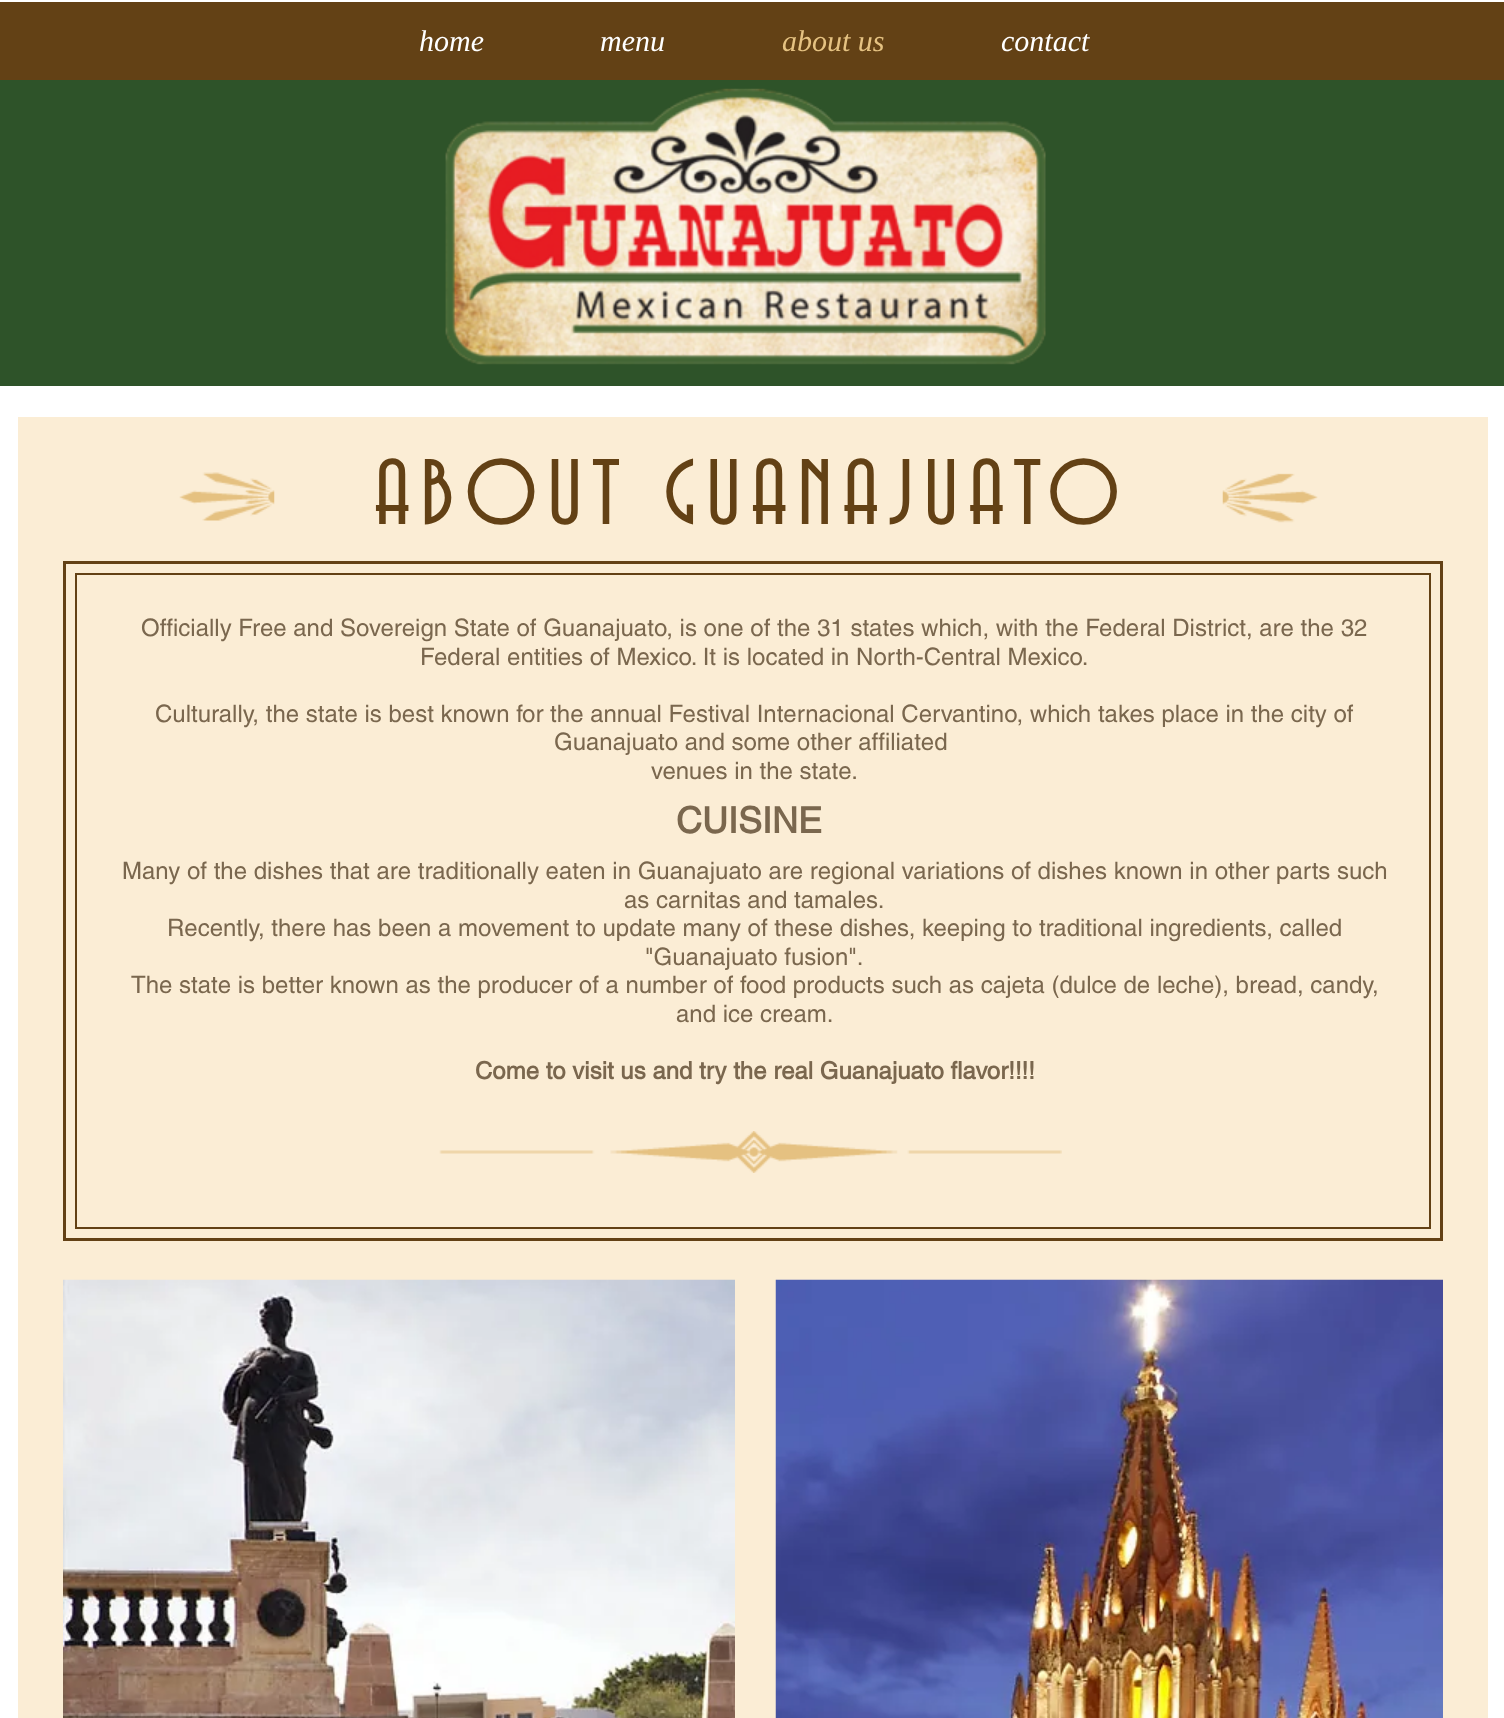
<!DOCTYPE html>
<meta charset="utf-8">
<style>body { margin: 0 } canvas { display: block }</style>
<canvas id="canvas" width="1504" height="1718"></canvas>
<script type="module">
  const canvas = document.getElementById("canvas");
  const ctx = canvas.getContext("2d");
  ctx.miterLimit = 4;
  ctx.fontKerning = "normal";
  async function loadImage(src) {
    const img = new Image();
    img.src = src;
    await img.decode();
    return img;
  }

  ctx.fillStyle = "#ffffff";
  ctx.fillRect(0, 0, 1504, 1718);
  ctx.fillStyle = "#634115";
  ctx.fillRect(0, 2, 1504, 78);
  ctx.font = "italic 30px Liberation Serif";
  ctx.fillStyle = "#ffffff";
  ctx.fillText("home", 419, 51);
  ctx.fillText("menu", 600, 51);
  ctx.fillStyle = "#e5c282";
  ctx.fillText("about us", 782, 51);
  ctx.fillStyle = "#ffffff";
  ctx.fillText("contact", 1001, 51);
  ctx.fillStyle = "#2e5329";
  ctx.fillRect(0, 80, 1504, 306);
  ctx.drawImage(await loadImage("img1.png"), 445, 88, 601, 277);
  ctx.fillStyle = "#fbedd5";
  ctx.fillRect(18, 417, 1470, 1301);
  ctx.drawImage(await loadImage("img2.png"), 179, 472, 96, 49);
  ctx.letterSpacing = "9.75px";
  ctx.font = "97.5px 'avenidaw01'";
  ctx.fillStyle = "#634115";
  ctx.fillText("ABOUT GUANAJUATO", 374, 524);
  ctx.drawImage(await loadImage("img3.png"), 1222, 473, 96, 50);
  ctx.strokeStyle = "#634115";
  ctx.lineWidth = 3;
  ctx.strokeRect(64.5, 562.5, 1377, 677);
  ctx.lineWidth = 2;
  ctx.strokeRect(76, 574, 1354, 654);
  ctx.letterSpacing = "0px";
  ctx.font = "24px helvetica";
  ctx.fillStyle = "#7a674e";
  ctx.fillText("Officially Free and Sovereign State of Guanajuato, is one of the 31 states which, with the Federal District, are the 32", 141, 636);
  ctx.fillText("Federal entities of Mexico. It is located in North-Central Mexico.", 420, 665);
  ctx.fillText("Culturally, the state is best known for the annual Festival Internacional Cervantino, which takes place in the city of", 155, 722);
  ctx.fillText("Guanajuato and some other affiliated", 554, 750);
  ctx.fillText("venues in the state.", 651, 779);
  ctx.font = "bold 36px helvetica";
  ctx.fillText("CUISINE", 676, 833);
  ctx.font = "24px helvetica";
  ctx.fillText("Many of the dishes that are traditionally eaten in Guanajuato are regional variations of dishes known in other parts such", 122, 879);
  ctx.fillText("as carnitas and tamales.", 624, 908);
  ctx.fillText("Recently, there has been a movement to update many of these dishes, keeping to traditional ingredients, called", 167, 936);
  ctx.fillText("\"Guanajuato fusion\".", 645, 965);
  ctx.fillText("The state is better known as the producer of a number of food products such as cajeta (dulce de leche), bread, candy,", 131, 993);
  ctx.fillText("and ice cream.", 676, 1022);
  ctx.font = "bold 24px helvetica";
  ctx.fillText("Come to visit us and try the real Guanajuato flavor!!!!", 475, 1079);
  ctx.drawImage(await loadImage("img4.png"), 439, 1131, 623, 42);
  ctx.drawImage(await loadImage("img5.png"), 63, 1279, 672, 439);
  ctx.drawImage(await loadImage("img6.png"), 775, 1279, 668, 439);
</script>
